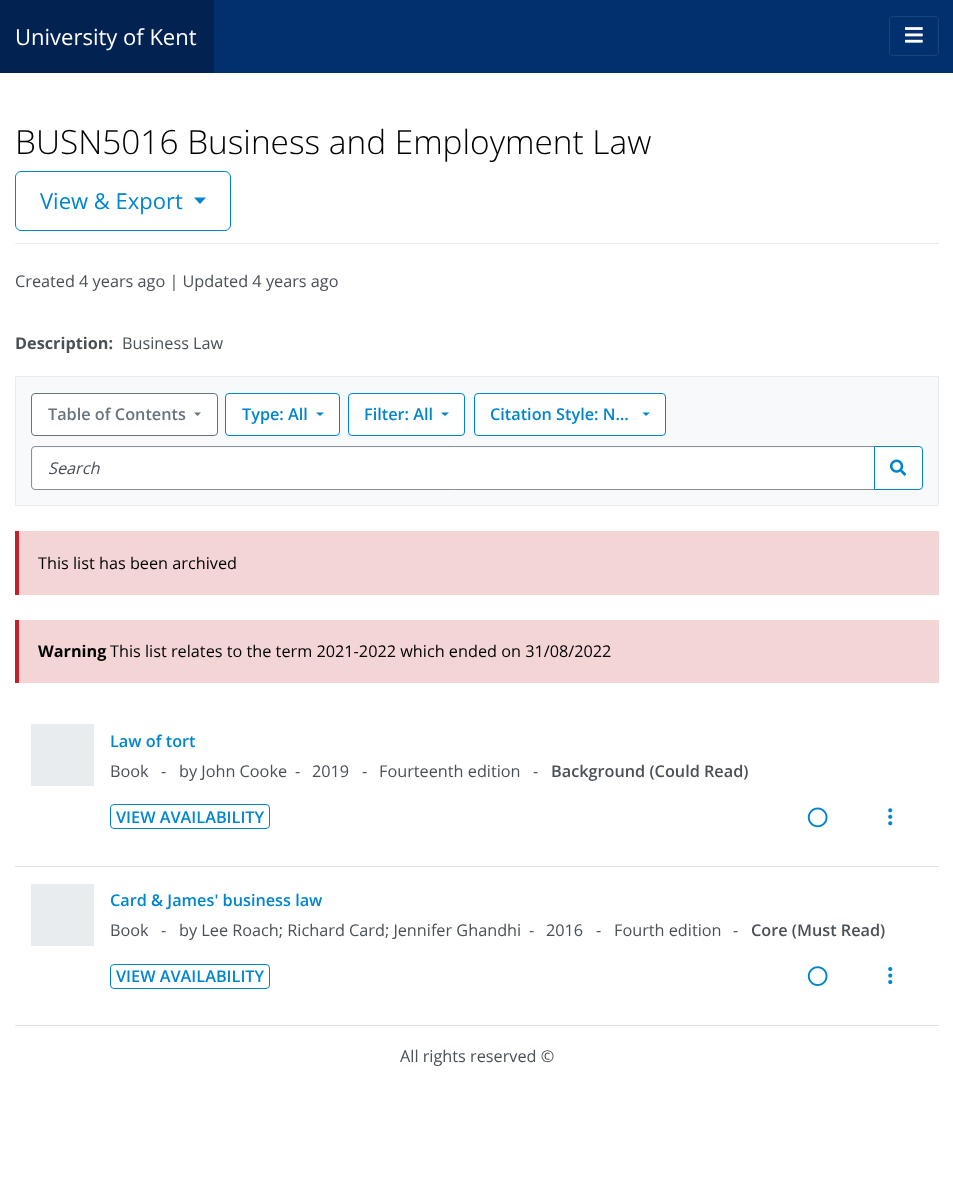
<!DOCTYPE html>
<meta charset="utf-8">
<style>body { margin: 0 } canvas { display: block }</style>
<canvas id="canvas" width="953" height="1180"></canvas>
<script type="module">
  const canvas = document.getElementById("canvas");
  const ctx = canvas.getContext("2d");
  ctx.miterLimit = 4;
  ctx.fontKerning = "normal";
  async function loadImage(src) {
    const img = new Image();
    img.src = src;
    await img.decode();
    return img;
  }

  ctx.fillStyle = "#ffffff";
  ctx.fillRect(0, 0, 953, 1180);
  ctx.fillStyle = "#022f6d";
  ctx.fillRect(214, 0, 739, 73);
  ctx.fillStyle = "#022352";
  ctx.fillRect(0, 0, 214, 73);
  ctx.font = "22px Open Sans";
  ctx.fillStyle = "#ffffff";
  ctx.fillText("University of Kent", 15, 45);
  ctx.beginPath();
  ctx.roundRect(889.5, 16.5, 49, 39, 3.5);
  ctx.strokeStyle = "#1b447c";
  ctx.stroke();
  ctx.drawImage(await loadImage("img1.png"), 905, 27, 18, 16);
  ctx.fillStyle = "#e9ecef";
  ctx.fillRect(15, 243, 924, 1);
  ctx.font = "300 33.4px Open Sans";
  ctx.fillStyle = "#000000";
  ctx.fillText("BUSN5016 Business and Employment Law", 15, 154);
  ctx.beginPath();
  ctx.roundRect(15.5, 171.5, 215, 59, 5.5);
  ctx.strokeStyle = "#0085cf";
  ctx.stroke();
  ctx.font = "22px Open Sans";
  ctx.fillStyle = "#0085cf";
  ctx.fillText("View & Export", 40, 209);
  ctx.beginPath();
  ctx.moveTo(194, 197.5);
  ctx.lineTo(206, 197.5);
  ctx.lineTo(200, 204);
  ctx.closePath();
  ctx.fill();
  ctx.font = "16.25px Open Sans";
  ctx.fillStyle = "#495057";
  ctx.fillText("Created 4 years ago | Updated 4 years ago", 15, 287);
  ctx.font = "bold 16.25px Open Sans";
  ctx.fillText("Description:", 15, 349);
  ctx.font = "16.25px Open Sans";
  ctx.fillText("Business Law", 122, 349);
  ctx.fillStyle = "#f8f9fa";
  ctx.beginPath();
  ctx.rect(15.5, 376.5, 923, 129);
  ctx.fill();
  ctx.strokeStyle = "#e9ecef";
  ctx.stroke();
  ctx.fillStyle = "#ffffff";
  ctx.beginPath();
  ctx.roundRect(31.5, 393.5, 186, 42, 3.5);
  ctx.fill();
  ctx.strokeStyle = "#69727f";
  ctx.stroke();
  ctx.font = "600 16.25px Open Sans";
  ctx.fillStyle = "#69727f";
  ctx.fillText("Table of Contents", 48, 420);
  ctx.beginPath();
  ctx.moveTo(194, 412.5);
  ctx.lineTo(201, 412.5);
  ctx.lineTo(197.5, 416);
  ctx.closePath();
  ctx.fill();
  ctx.fillStyle = "#ffffff";
  ctx.beginPath();
  ctx.roundRect(225.5, 393.5, 114, 42, 3.5);
  ctx.fill();
  ctx.strokeStyle = "#0085cf";
  ctx.stroke();
  ctx.fillStyle = "#0085cf";
  ctx.fillText("Type: All", 242, 420);
  ctx.beginPath();
  ctx.moveTo(316, 412.5);
  ctx.lineTo(324, 412.5);
  ctx.lineTo(320, 416);
  ctx.closePath();
  ctx.fill();
  ctx.fillStyle = "#ffffff";
  ctx.beginPath();
  ctx.roundRect(348.5, 393.5, 116, 42, 3.5);
  ctx.fill();
  ctx.stroke();
  ctx.fillStyle = "#0085cf";
  ctx.fillText("Filter: All", 364, 420);
  ctx.beginPath();
  ctx.moveTo(441, 412.5);
  ctx.lineTo(449, 412.5);
  ctx.lineTo(445, 416);
  ctx.closePath();
  ctx.fill();
  ctx.fillStyle = "#ffffff";
  ctx.beginPath();
  ctx.roundRect(474.5, 393.5, 191, 42, 3.5);
  ctx.fill();
  ctx.stroke();
  ctx.fillStyle = "#0085cf";
  ctx.fillText("Citation Style: N…", 490, 420);
  ctx.beginPath();
  ctx.moveTo(642.5, 412.5);
  ctx.lineTo(650, 412.5);
  ctx.lineTo(646, 416);
  ctx.closePath();
  ctx.fill();
  ctx.fillStyle = "#ffffff";
  ctx.beginPath();
  ctx.roundRect(33, 448, 841, 41, [2.5, 0, 0, 2.5]);
  ctx.fill();
  ctx.beginPath();
  ctx.roundRect(31.5, 446.5, 843, 43, [3.5, 0, 0, 3.5]);
  ctx.strokeStyle = "#868e96";
  ctx.stroke();
  ctx.font = "italic 16.25px Open Sans";
  ctx.fillStyle = "#495057";
  ctx.fillText("Search", 48, 474);
  ctx.fillStyle = "#ffffff";
  ctx.beginPath();
  ctx.roundRect(874.5, 446.5, 48, 43, [0, 3.5, 3.5, 0]);
  ctx.fill();
  ctx.strokeStyle = "#0085cf";
  ctx.stroke();
  ctx.drawImage(await loadImage("img2.png"), 890, 459, 17, 17);
  ctx.fillStyle = "#f3d5d5";
  ctx.fillRect(19, 531, 920, 64);
  ctx.fillStyle = "#c42129";
  ctx.fillRect(15, 531, 4, 64);
  ctx.font = "16.25px Open Sans";
  ctx.fillStyle = "#000000";
  ctx.fillText("This list has been archived", 38, 569);
  ctx.fillStyle = "#f3d5d5";
  ctx.fillRect(19, 620, 920, 63);
  ctx.fillStyle = "#c42129";
  ctx.fillRect(15, 620, 4, 63);
  ctx.font = "bold 16.25px Open Sans";
  ctx.fillStyle = "#000000";
  ctx.fillText("Warning", 38, 657);
  ctx.font = "16.25px Open Sans";
  ctx.fillText("This list relates to the term 2021-2022 which ended on 31/08/2022", 110, 657);
  ctx.fillStyle = "#dee2e6";
  ctx.fillRect(15, 866, 924, 1);
  ctx.fillStyle = "#e9ecef";
  ctx.fillRect(31, 724, 63, 62);
  ctx.font = "600 16.25px Open Sans";
  ctx.fillStyle = "#0085cf";
  ctx.fillText("Law of tort", 110, 747);
  ctx.font = "16.25px Open Sans";
  ctx.fillStyle = "#495057";
  ctx.fillText("Book", 110, 777);
  ctx.fillText("-", 161, 777);
  ctx.fillText("by John Cooke", 179, 777);
  ctx.fillText("-", 295, 777);
  ctx.fillText("2019", 312, 777);
  ctx.fillText("-", 362, 777);
  ctx.fillText("Fourteenth edition", 379, 777);
  ctx.fillText("-", 533, 777);
  ctx.font = "600 16.25px Open Sans";
  ctx.fillText("Background (Could Read)", 551, 777);
  ctx.beginPath();
  ctx.roundRect(110.5, 804.5, 159, 24, 3.5);
  ctx.stroke();
  ctx.fillStyle = "#0085cf";
  ctx.fillText("VIEW AVAILABILITY", 116, 823);
  ctx.drawImage(await loadImage("img3.png"), 807, 807, 21, 21);
  ctx.drawImage(await loadImage("img4.png"), 888, 808, 5, 18);
  ctx.fillStyle = "#dee2e6";
  ctx.fillRect(15, 1025, 924, 1);
  ctx.fillStyle = "#e9ecef";
  ctx.fillRect(31, 884, 63, 62);
  ctx.fillStyle = "#0085cf";
  ctx.fillText("Card & James' business law", 110, 906);
  ctx.font = "16.25px Open Sans";
  ctx.fillStyle = "#495057";
  ctx.fillText("Book", 110, 936);
  ctx.fillText("-", 161, 936);
  ctx.fillText("by Lee Roach; Richard Card; Jennifer Ghandhi", 179, 936);
  ctx.fillText("-", 529, 936);
  ctx.fillText("2016", 546, 936);
  ctx.fillText("-", 596, 936);
  ctx.fillText("Fourth edition", 614, 936);
  ctx.fillText("-", 733, 936);
  ctx.font = "600 16.25px Open Sans";
  ctx.fillText("Core (Must Read)", 751, 936);
  ctx.beginPath();
  ctx.roundRect(110.5, 964.5, 159, 24, 3.5);
  ctx.stroke();
  ctx.fillStyle = "#0085cf";
  ctx.fillText("VIEW AVAILABILITY", 116, 982);
  ctx.drawImage(await loadImage("img5.png"), 807, 966, 21, 20);
  ctx.drawImage(await loadImage("img6.png"), 888, 967, 5, 18);
  ctx.font = "16.25px Open Sans";
  ctx.fillStyle = "#495057";
  ctx.fillText("All rights reserved ©", 400, 1062);
</script>
